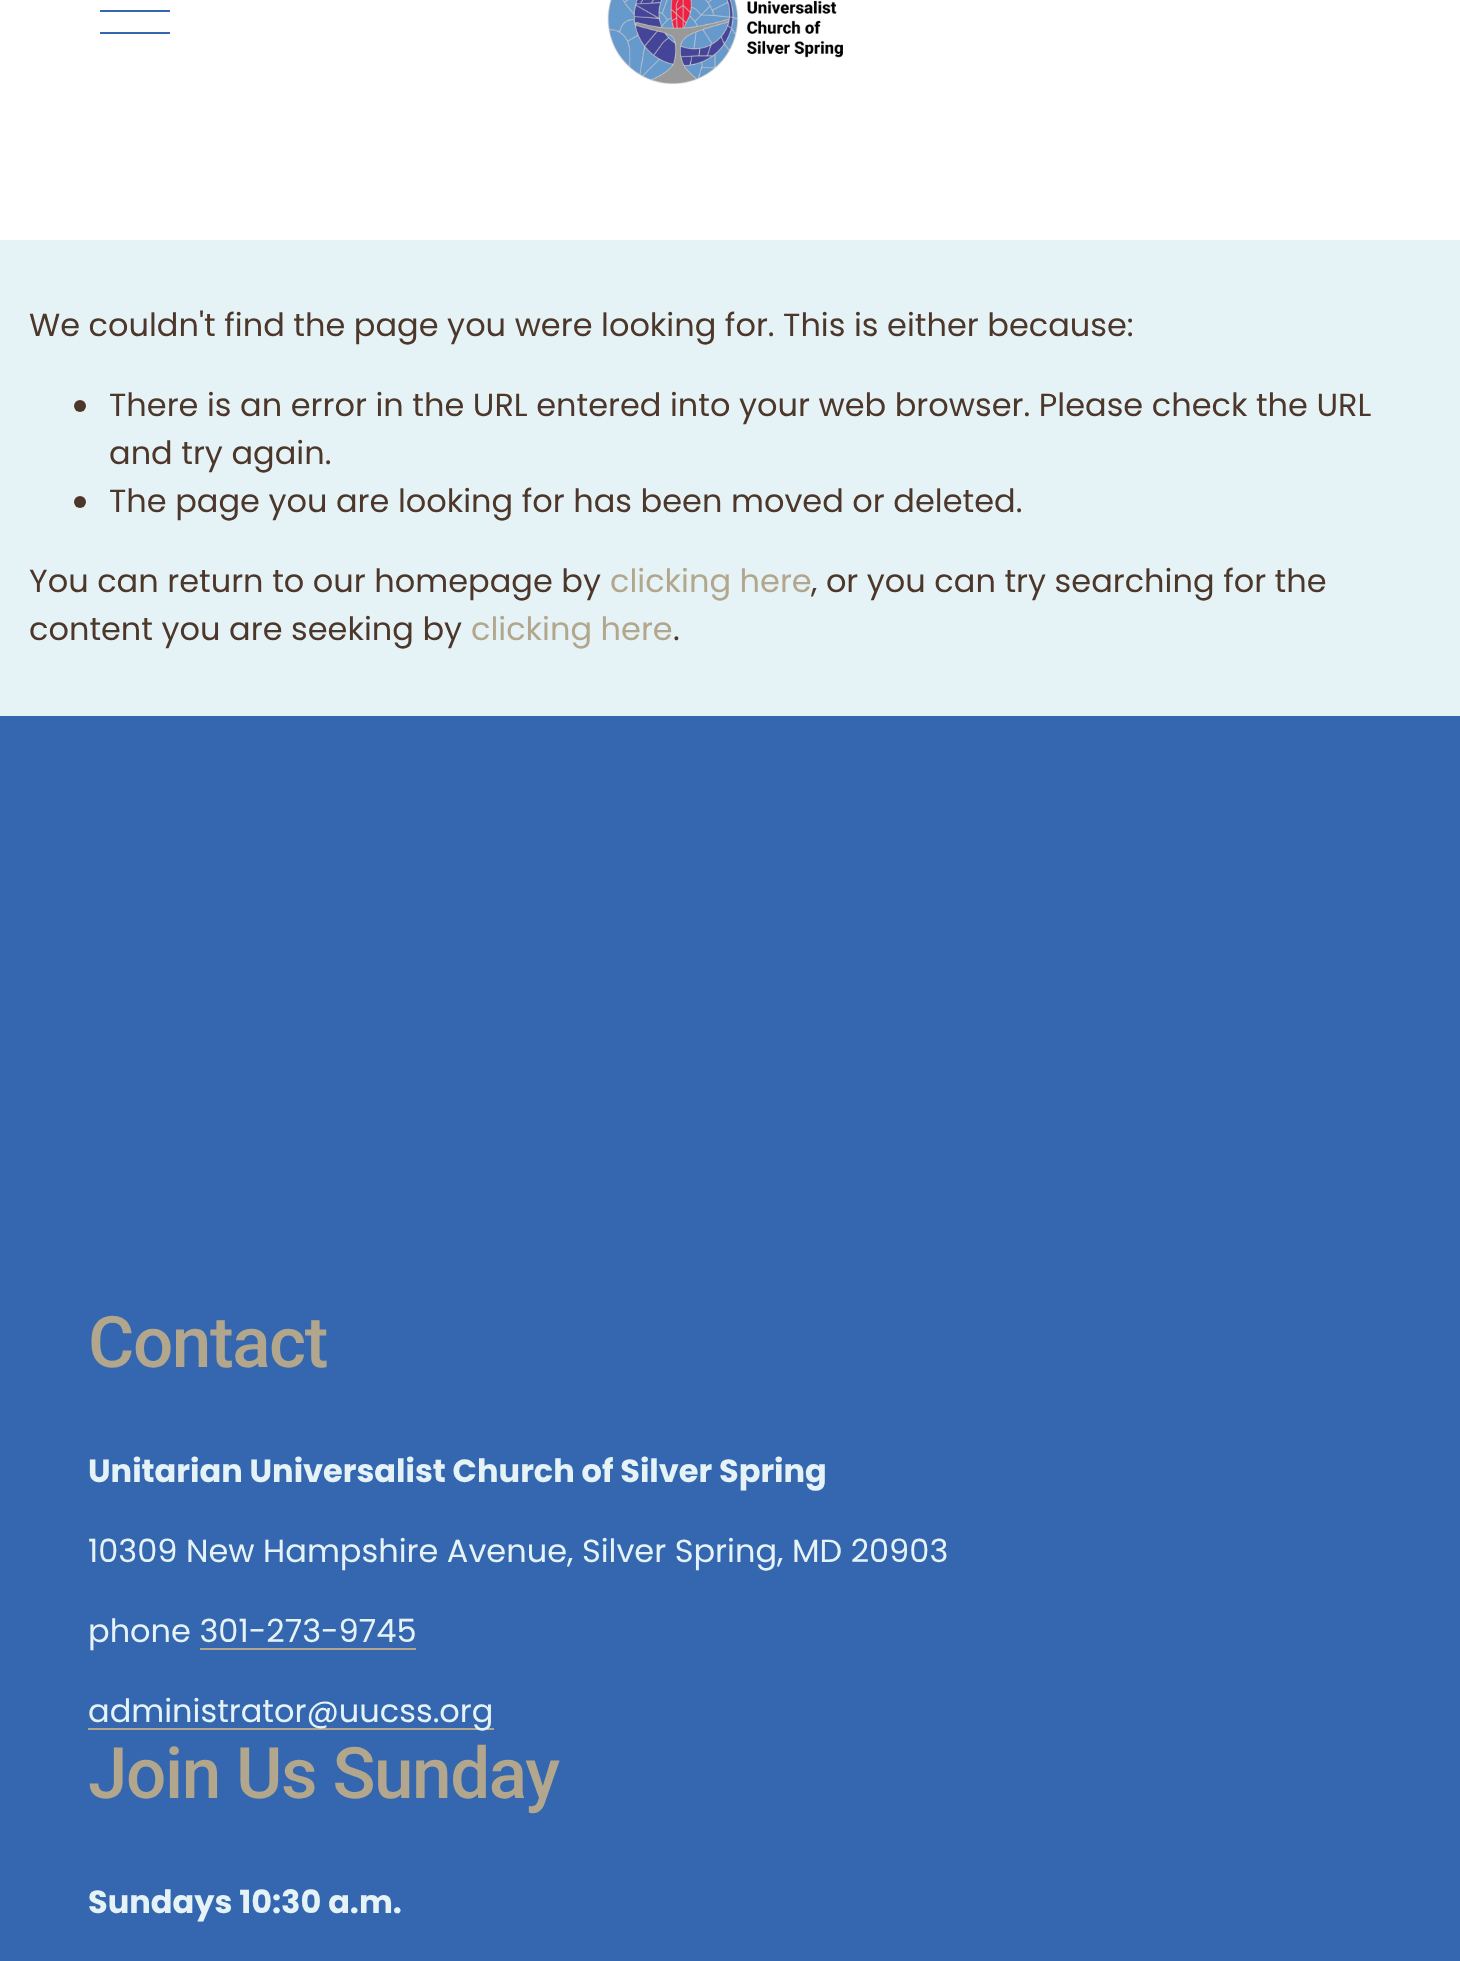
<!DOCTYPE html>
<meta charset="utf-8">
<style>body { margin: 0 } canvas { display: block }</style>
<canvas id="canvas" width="1460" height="1961"></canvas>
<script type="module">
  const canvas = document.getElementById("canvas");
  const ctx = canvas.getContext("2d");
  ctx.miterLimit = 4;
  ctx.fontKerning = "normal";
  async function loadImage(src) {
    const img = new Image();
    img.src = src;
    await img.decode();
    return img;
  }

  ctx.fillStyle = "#e5f3f7";
  ctx.fillRect(0, 0, 1460, 1961);
  ctx.fillStyle = "#ffffff";
  ctx.fillRect(0, 0, 1460, 240);
  ctx.fillStyle = "#3467b0";
  ctx.fillRect(100, 10, 70, 2);
  ctx.fillRect(100, 32, 70, 2);
  ctx.drawImage(await loadImage("img1.png"), 607, 0, 236, 84);
  ctx.font = "32px Poppins";
  ctx.fillStyle = "#4d372b";
  ctx.fillText("We couldn't find the page you were looking for. This is either because:", 29, 336);
  ctx.beginPath();
  ctx.arc(80, 406, 6, 0, Math.PI * 2);
  ctx.fill();
  ctx.fillText("There is an error in the URL entered into your web browser. Please check the URL", 109, 416);
  ctx.fillText("and try again.", 109, 464);
  ctx.beginPath();
  ctx.arc(80, 502, 6, 0, Math.PI * 2);
  ctx.fill();
  ctx.fillText("The page you are looking for has been moved or deleted.", 109, 512);
  ctx.fillText("You can return to our homepage by", 29, 592);
  ctx.fillStyle = "#b2a68d";
  ctx.fillText("clicking here", 610, 592);
  ctx.fillStyle = "#4d372b";
  ctx.fillText(", or you can try searching for the", 811, 592);
  ctx.fillText("content you are seeking by", 29, 640);
  ctx.fillStyle = "#b2a68d";
  ctx.fillText("clicking here", 471, 640);
  ctx.fillStyle = "#4d372b";
  ctx.fillText(".", 673, 640);
  ctx.fillStyle = "#3467b0";
  ctx.fillRect(0, 716, 1460, 1245);
  ctx.letterSpacing = "-1.4px";
  ctx.font = "500 71px Roboto";
  ctx.fillStyle = "#b2a68d";
  ctx.fillText("Contact", 88, 1367);
  ctx.letterSpacing = "0px";
  ctx.font = "bold 32px Poppins";
  ctx.fillStyle = "#e5f3f7";
  ctx.fillText("Unitarian Universalist Church of Silver Spring", 88, 1482);
  ctx.font = "32px Poppins";
  ctx.fillText("10309 New Hampshire Avenue, Silver Spring, MD 20903", 88, 1562);
  ctx.fillText("phone 301-273-9745", 88, 1642);
  ctx.fillStyle = "#b2a68d";
  ctx.fillRect(200, 1648, 216, 2);
  ctx.fillRect(88, 1728, 406, 2);
  ctx.fillStyle = "#e5f3f7";
  ctx.fillText("administrator@uucss.org", 88, 1722);
  ctx.letterSpacing = "-1.4px";
  ctx.font = "500 71px Roboto";
  ctx.fillStyle = "#b2a68d";
  ctx.fillText("Join Us Sunday", 88, 1798);
  ctx.letterSpacing = "0px";
  ctx.font = "bold 32px Poppins";
  ctx.fillStyle = "#e5f3f7";
  ctx.fillText("Sundays 10:30 a.m.", 88, 1913);
</script>
